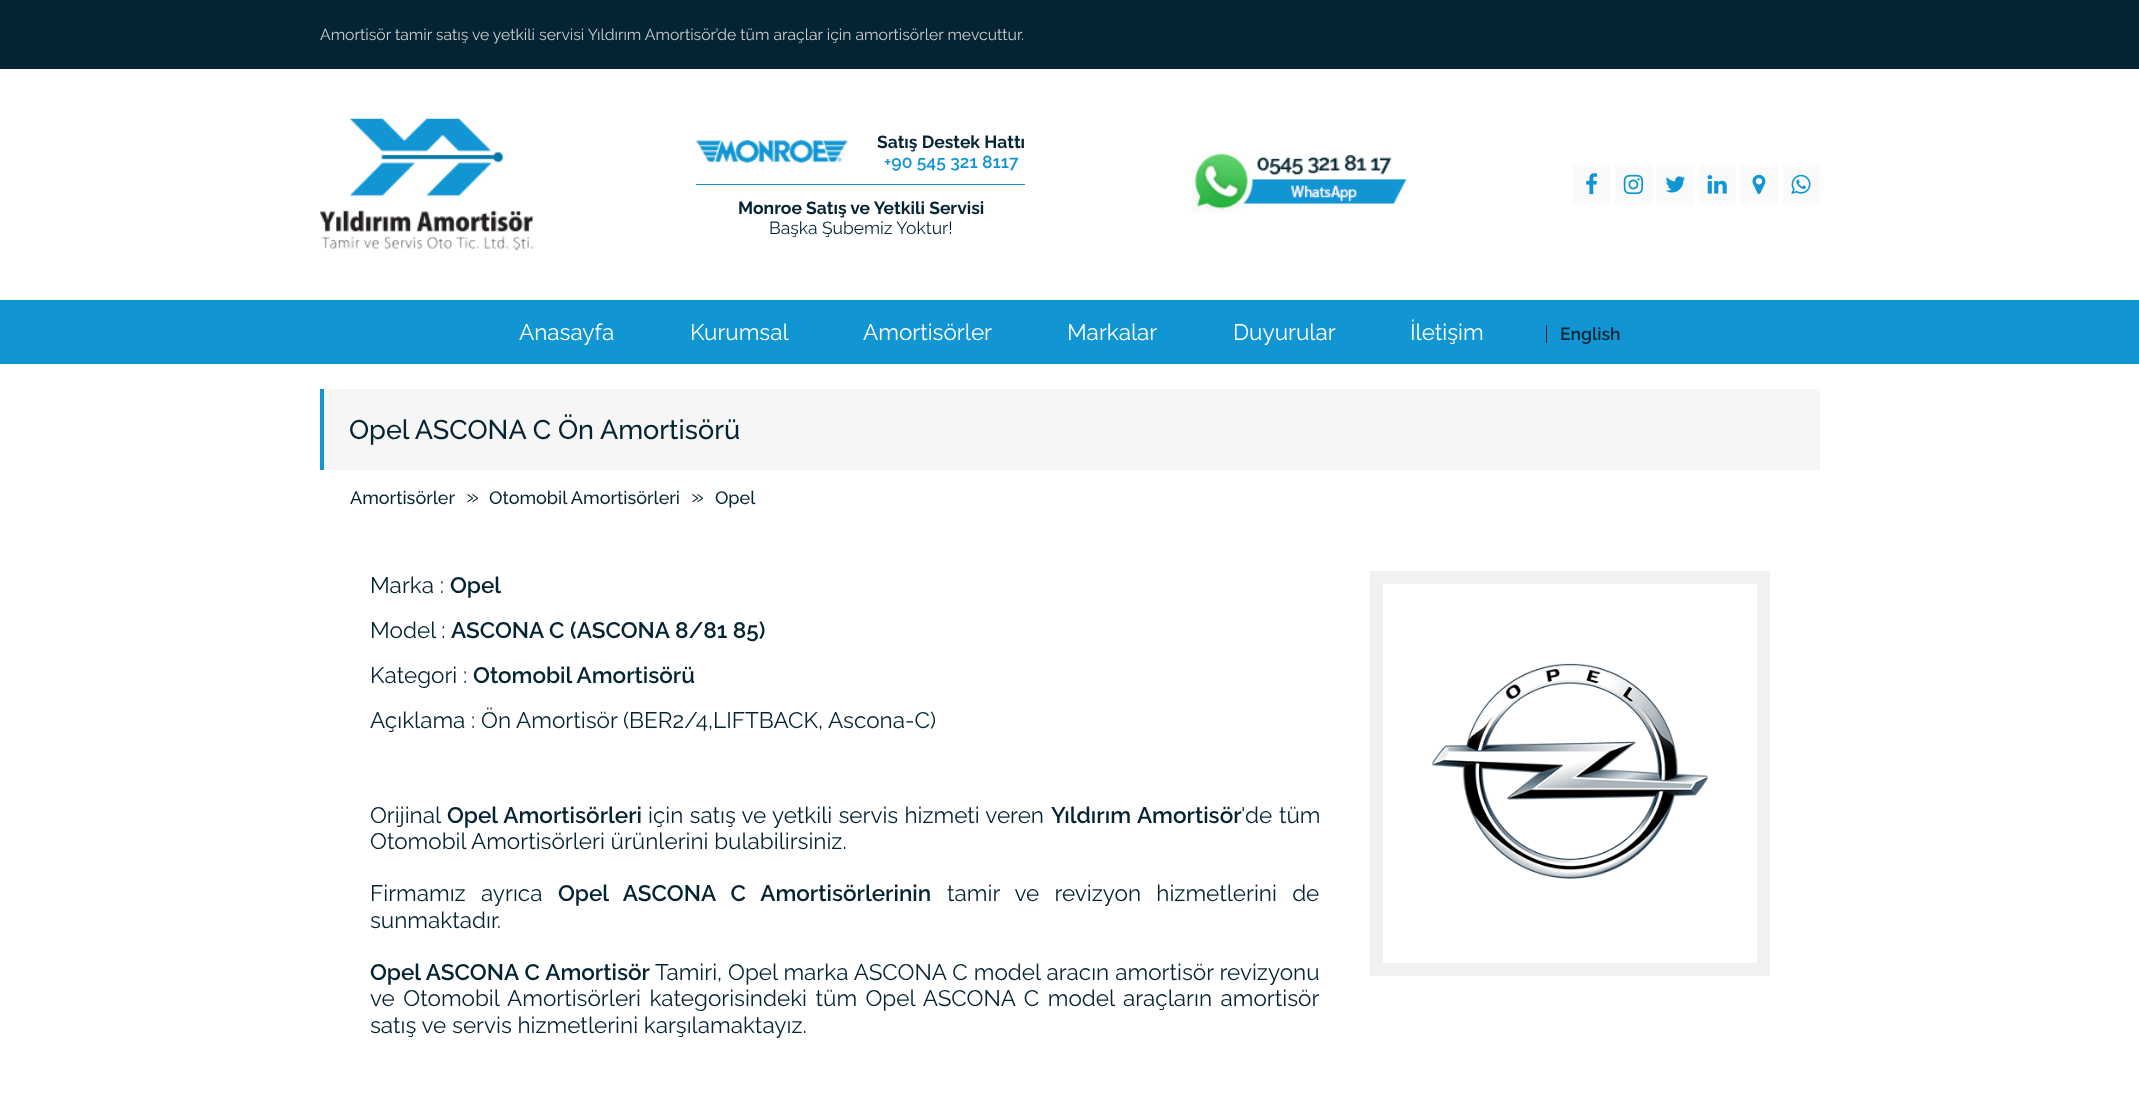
<!DOCTYPE html>
<meta charset="utf-8">
<style>body { margin: 0 } canvas { display: block }</style>
<canvas id="canvas" width="2139" height="1101"></canvas>
<script type="module">
  const canvas = document.getElementById("canvas");
  const ctx = canvas.getContext("2d");
  ctx.miterLimit = 4;
  ctx.fontKerning = "normal";
  async function loadImage(src) {
    const img = new Image();
    img.src = src;
    await img.decode();
    return img;
  }

  ctx.fillStyle = "#042433";
  ctx.fillRect(0, 0, 2139, 1101);
  ctx.font = "15.75px Raleway";
  ctx.fillStyle = "#cccccc";
  ctx.fillText("Amortisör tamir satış ve yetkili servisi Yıldırım Amortisör’de tüm araçlar için amortisörler mevcuttur.", 320, 40);
  ctx.fillStyle = "#ffffff";
  ctx.fillRect(0, 69, 2139, 231);
  ctx.drawImage(await loadImage("img1.png"), 320, 118, 213, 132);
  ctx.fillStyle = "#1195d3";
  ctx.fillRect(696, 184, 329, 1);
  ctx.drawImage(await loadImage("img2.png"), 696, 140, 152, 23);
  ctx.font = "bold 17.5px Raleway";
  ctx.fillStyle = "#042433";
  ctx.fillText("Satış Destek Hattı", 877, 148);
  ctx.font = "600 17.5px Raleway";
  ctx.fillStyle = "#1195d3";
  ctx.fillText("+90 545 321 8117", 884, 168);
  ctx.font = "bold 17.5px Raleway";
  ctx.fillStyle = "#042433";
  ctx.fillText("Monroe Satış ve Yetkili Servisi", 738, 214);
  ctx.font = "17.5px Raleway";
  ctx.fillText("Başka Şubemiz Yoktur!", 769, 234);
  ctx.drawImage(await loadImage("img3.png"), 1190, 153, 217, 60);
  ctx.fillStyle = "#fafafa";
  ctx.fillRect(1573, 165, 37, 40);
  ctx.drawImage(await loadImage("img4.png"), 1586, 173, 12, 22);
  ctx.fillRect(1615, 165, 38, 40);
  ctx.drawImage(await loadImage("img5.png"), 1623, 174, 21, 21);
  ctx.fillRect(1656, 165, 38, 40);
  ctx.drawImage(await loadImage("img6.png"), 1665, 176, 21, 17);
  ctx.fillRect(1699, 165, 37, 40);
  ctx.drawImage(await loadImage("img7.png"), 1707, 175, 20, 19);
  ctx.fillRect(1740, 165, 38, 40);
  ctx.drawImage(await loadImage("img8.png"), 1752, 174, 14, 21);
  ctx.fillRect(1783, 165, 37, 40);
  ctx.drawImage(await loadImage("img9.png"), 1791, 174, 20, 21);
  ctx.fillStyle = "#1195d3";
  ctx.fillRect(0, 300, 2139, 64);
  ctx.font = "22.5px Raleway";
  ctx.fillStyle = "#ffffff";
  ctx.fillText("Anasayfa", 519, 340);
  ctx.fillText("Kurumsal", 690, 340);
  ctx.fillText("Amortisörler", 863, 340);
  ctx.fillText("Markalar", 1067, 340);
  ctx.fillText("Duyurular", 1233, 340);
  ctx.fillText("İletişim", 1410, 340);
  ctx.fillStyle = "#042433";
  ctx.fillRect(1546, 325, 1, 18);
  ctx.font = "600 17.5px Raleway";
  ctx.fillText("English", 1560, 340);
  ctx.fillStyle = "#ffffff";
  ctx.fillRect(0, 364, 2139, 737);
  ctx.fillStyle = "#f6f6f6";
  ctx.fillRect(324, 389, 1496, 81);
  ctx.fillStyle = "#1195d3";
  ctx.fillRect(320, 389, 4, 81);
  ctx.font = "500 27px Raleway";
  ctx.fillStyle = "#042433";
  ctx.fillText("Opel ASCONA C Ön Amortisörü", 349, 439);
  ctx.font = "500 18px Raleway";
  ctx.fillText("Amortisörler", 350, 504);
  ctx.font = "22.5px Raleway";
  ctx.fillText("»", 466, 504);
  ctx.font = "500 18px Raleway";
  ctx.fillText("Otomobil Amortisörleri", 489, 504);
  ctx.font = "22.5px Raleway";
  ctx.fillText("»", 691, 504);
  ctx.font = "500 18px Raleway";
  ctx.fillText("Opel", 715, 504);
  ctx.font = "22.5px Raleway";
  ctx.fillText("Marka :", 370, 593);
  ctx.font = "600 22.5px Raleway";
  ctx.fillText("Opel", 450, 593);
  ctx.strokeStyle = "#f1f1f1";
  ctx.lineWidth = 13;
  ctx.strokeRect(1376.5, 577.5, 387, 392);
  ctx.drawImage(await loadImage("img10.png"), 1432, 663, 276, 216);
  ctx.font = "22.5px Raleway";
  ctx.fillText("Model :", 370, 638);
  ctx.font = "600 22.5px Raleway";
  ctx.fillText("ASCONA C (ASCONA 8/81 85)", 451, 638);
  ctx.font = "22.5px Raleway";
  ctx.fillText("Kategori :", 370, 683);
  ctx.font = "600 22.5px Raleway";
  ctx.fillText("Otomobil Amortisörü", 473, 683);
  ctx.font = "22.5px Raleway";
  ctx.fillText("Açıklama : Ön Amortisör (BER2/4,LIFTBACK, Ascona-C)", 370, 728);
  ctx.fillText("Orijinal", 370, 823);
  ctx.wordSpacing = "1px";
  ctx.font = "600 22.5px Raleway";
  ctx.fillText("Opel Amortisörleri", 447, 823);
  ctx.wordSpacing = "0.5px";
  ctx.font = "22.5px Raleway";
  ctx.fillText("için satış ve yetkili servis hizmeti veren", 648, 823);
  ctx.wordSpacing = "1px";
  ctx.font = "600 22.5px Raleway";
  ctx.fillText("Yıldırım Amortisör", 1051, 823);
  ctx.font = "22.5px Raleway";
  ctx.fillText("'de tüm", 1241, 823);
  ctx.wordSpacing = "0px";
  ctx.fillText("Otomobil Amortisörleri ürünlerini bulabilirsiniz.", 370, 849);
  ctx.wordSpacing = "9.5px";
  ctx.fillText("Firmamız ayrıca", 370, 901);
  ctx.font = "600 22.5px Raleway";
  ctx.fillText("Opel ASCONA C Amortisörlerinin", 558, 901);
  ctx.font = "22.5px Raleway";
  ctx.fillText("tamir ve revizyon hizmetlerini de", 947, 901);
  ctx.wordSpacing = "0px";
  ctx.fillText("sunmaktadır.", 370, 928);
  ctx.wordSpacing = "0.5px";
  ctx.font = "600 22.5px Raleway";
  ctx.fillText("Opel ASCONA C Amortisör", 370, 980);
  ctx.wordSpacing = "0.25px";
  ctx.font = "22.5px Raleway";
  ctx.fillText("Tamiri, Opel marka ASCONA C model aracın amortisör revizyonu", 655, 980);
  ctx.wordSpacing = "2.75px";
  ctx.fillText("ve Otomobil Amortisörleri kategorisindeki tüm Opel ASCONA C model araçların amortisör", 370, 1006);
  ctx.wordSpacing = "0px";
  ctx.fillText("satış ve servis hizmetlerini karşılamaktayız.", 370, 1033);
</script>
